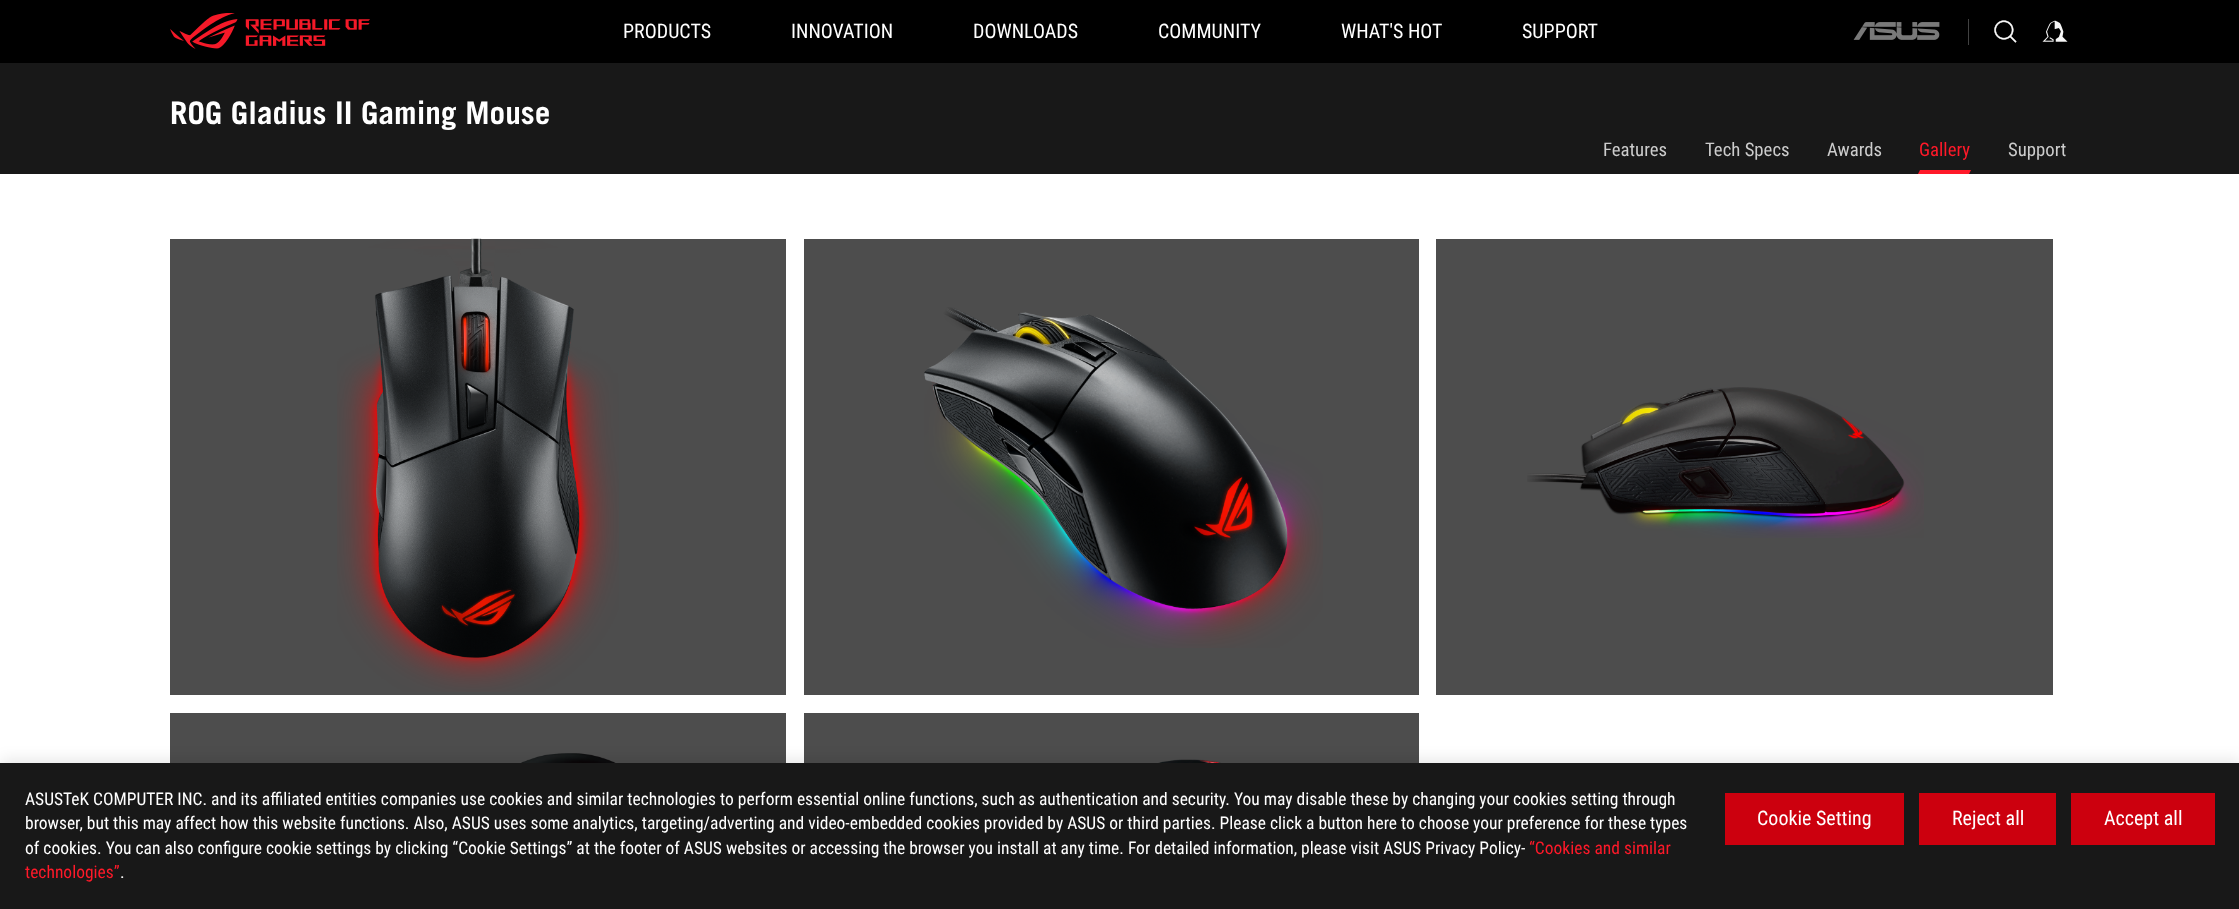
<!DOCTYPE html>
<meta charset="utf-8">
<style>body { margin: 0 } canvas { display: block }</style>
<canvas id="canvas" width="2239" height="909"></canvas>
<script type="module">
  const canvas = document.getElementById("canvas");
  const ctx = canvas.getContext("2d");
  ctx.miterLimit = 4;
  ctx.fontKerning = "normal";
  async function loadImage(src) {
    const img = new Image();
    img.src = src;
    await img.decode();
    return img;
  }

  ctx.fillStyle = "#ffffff";
  ctx.fillRect(0, 0, 2239, 909);
  ctx.fillStyle = "#000000";
  ctx.fillRect(0, 0, 2239, 63);
  ctx.drawImage(await loadImage("img1.png"), 170, 13, 200, 36);
  ctx.font = "20px Roboto Condensed";
  ctx.fillStyle = "#ffffff";
  ctx.fillText("PRODUCTS", 623, 38);
  ctx.fillText("INNOVATION", 791, 38);
  ctx.fillText("DOWNLOADS", 973, 38);
  ctx.fillText("COMMUNITY", 1158, 38);
  ctx.fillText("WHAT'S HOT", 1341, 38);
  ctx.fillText("SUPPORT", 1522, 38);
  ctx.fillStyle = "#424242";
  ctx.fillRect(1968, 19, 1, 26);
  ctx.drawImage(await loadImage("img2.png"), 1853, 22, 87, 18);
  ctx.drawImage(await loadImage("img3.png"), 1994, 20, 23, 23);
  ctx.drawImage(await loadImage("img4.png"), 2042, 20, 26, 22);
  ctx.fillStyle = "#181818";
  ctx.fillRect(0, 63, 2239, 111);
  ctx.font = "bold 31.25px Trade Gothic";
  ctx.fillStyle = "#ffffff";
  ctx.fillText("ROG Gladius II Gaming Mouse", 170, 124);
  ctx.font = "18.75px Roboto Condensed";
  ctx.fillStyle = "#cccccc";
  ctx.fillText("Features", 1603, 156);
  ctx.fillText("Tech Specs", 1705, 156);
  ctx.fillText("Awards", 1827, 156);
  ctx.fillStyle = "#ff1929";
  ctx.fillText("Gallery", 1919, 156);
  ctx.beginPath();
  ctx.moveTo(1920, 170);
  ctx.lineTo(1971, 170);
  ctx.lineTo(1969, 174);
  ctx.lineTo(1918, 174);
  ctx.closePath();
  ctx.fill();
  ctx.fillStyle = "#cccccc";
  ctx.fillText("Support", 2008, 156);
  ctx.fillStyle = "#4d4d4d";
  ctx.fillRect(170, 239, 616, 456);
  ctx.drawImage(await loadImage("img5.png"), 337, 238, 282, 454);
  ctx.fillRect(804, 239, 615, 456);
  ctx.drawImage(await loadImage("img6.png"), 924, 307, 399, 341);
  ctx.fillRect(1436, 239, 617, 456);
  ctx.drawImage(await loadImage("img7.png"), 1527, 387, 397, 151);
  ctx.fillRect(170, 713, 616, 50);
  ctx.drawImage(await loadImage("img8.png"), 521, 753, 95, 10);
  ctx.fillRect(804, 713, 615, 50);
  ctx.drawImage(await loadImage("img9.png"), 1158, 759, 63, 4);
  ctx.fillStyle = "rgba(0, 0, 0, 0.1)";
  ctx.filter = "blur(7.5px)";
  ctx.beginPath();
  ctx.rect(1, 760, 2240, 148);
  ctx.fill();
  ctx.filter = "none";
  ctx.fillStyle = "#181818";
  ctx.fillRect(0, 763, 2239, 146);
  ctx.font = "17.5px Roboto Condensed";
  ctx.fillStyle = "#ffffff";
  ctx.fillText("ASUSTeK COMPUTER INC. and its affiliated entities companies use cookies and similar technologies to perform essential online functions, such as authentication and security. You may disable these by changing your cookies setting through", 25, 805);
  ctx.fillText("browser, but this may affect how this website functions. Also, ASUS uses some analytics, targeting/adverting and video-embedded cookies provided by ASUS or third parties. Please click a button here to choose your preference for these types", 25, 829);
  ctx.fillText("of cookies. You can also configure cookie settings by clicking “Cookie Settings” at the footer of ASUS websites or accessing the browser you install at any time. For detailed information, please visit ASUS Privacy Policy-", 25, 854);
  ctx.fillStyle = "#ff1929";
  ctx.fillText("“Cookies and similar", 1529, 854);
  ctx.fillText("technologies”", 25, 878);
  ctx.fillStyle = "#ffffff";
  ctx.fillText(".", 120, 878);
  ctx.fillStyle = "#cc000e";
  ctx.fillRect(1725, 793, 179, 52);
  ctx.font = "20px Roboto Condensed";
  ctx.fillStyle = "#ffffff";
  ctx.fillText("Cookie Setting", 1757, 825);
  ctx.fillStyle = "#cc000e";
  ctx.fillRect(1919, 793, 137, 52);
  ctx.fillStyle = "#ffffff";
  ctx.fillText("Reject all", 1952, 825);
  ctx.fillStyle = "#cc000e";
  ctx.fillRect(2071, 793, 144, 52);
  ctx.fillStyle = "#ffffff";
  ctx.fillText("Accept all", 2104, 825);
</script>
